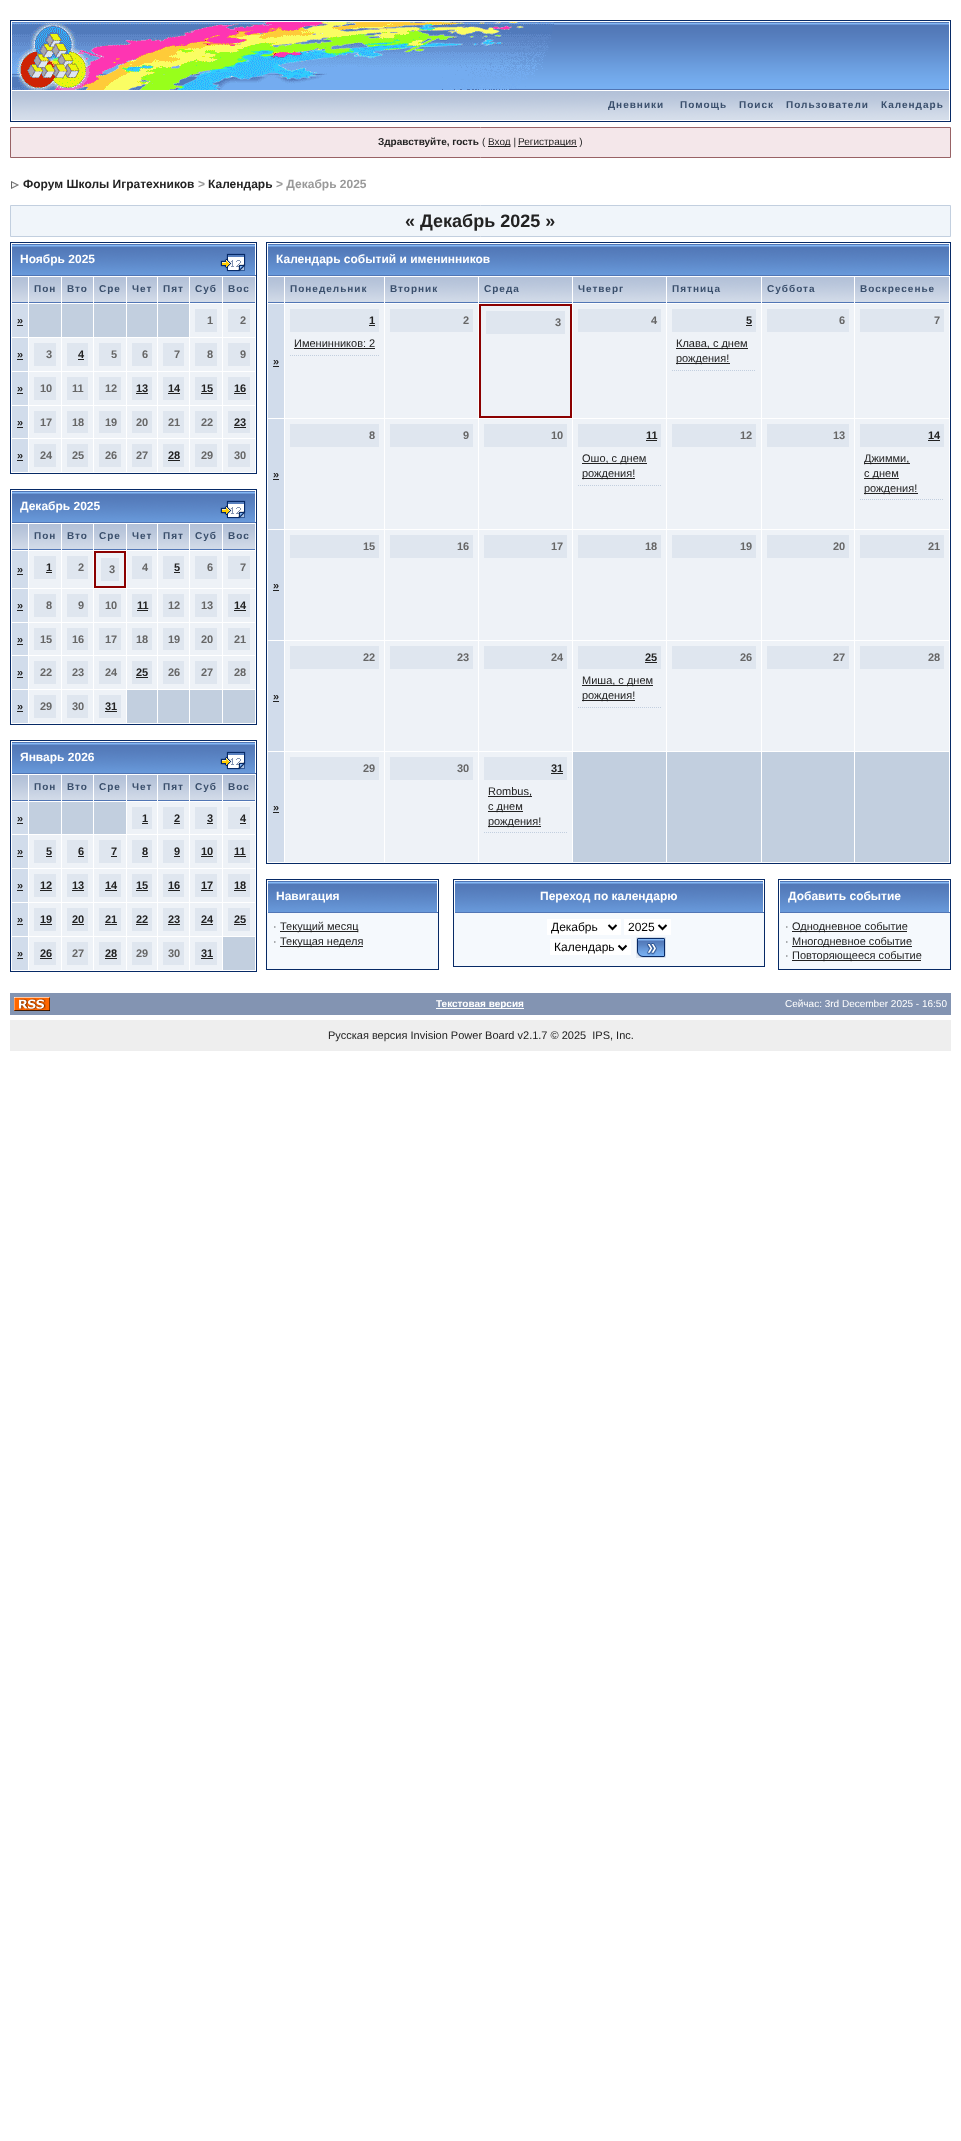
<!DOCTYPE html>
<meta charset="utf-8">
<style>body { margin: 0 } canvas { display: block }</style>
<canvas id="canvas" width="961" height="2141"></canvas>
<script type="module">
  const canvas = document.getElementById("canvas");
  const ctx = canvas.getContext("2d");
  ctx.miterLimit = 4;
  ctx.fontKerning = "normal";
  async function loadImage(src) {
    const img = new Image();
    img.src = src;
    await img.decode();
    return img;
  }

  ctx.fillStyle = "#ffffff";
  ctx.fillRect(0, 0, 961, 2141);
  ctx.strokeStyle = "#072a66";
  ctx.strokeRect(10.5, 20.5, 940, 101);
  ctx.drawImage(await loadImage("img1.png"), 439, 22, 510, 68);
  ctx.drawImage(await loadImage("img2.png"), 12, 22, 542, 68);
  ctx.drawImage(await loadImage("img3.png"), 12, 91, 937, 29);
  ctx.letterSpacing = "1px";
  ctx.font = "bold 10px Liberation Sans";
  ctx.fillStyle = "#3a4f6c";
  ctx.fillText("Дневники", 608, 108);
  ctx.fillText("Помощь", 680, 108);
  ctx.fillText("Поиск", 739, 108);
  ctx.fillText("Пользователи", 786, 108);
  ctx.fillText("Календарь", 881, 108);
  ctx.fillStyle = "#f4e7ea";
  ctx.beginPath();
  ctx.rect(10.5, 127.5, 940, 30);
  ctx.fill();
  ctx.strokeStyle = "#986265";
  ctx.stroke();
  ctx.letterSpacing = "0px";
  ctx.fillStyle = "#222222";
  ctx.fillText("Здравствуйте, гость", 378, 145);
  ctx.font = "10px Liberation Sans";
  ctx.fillText("(", 482, 145);
  ctx.fillRect(488, 146, 22, 1);
  ctx.fillText("Вход |", 488, 145);
  ctx.fillRect(518, 146, 59, 1);
  ctx.fillText("Регистрация )", 518, 145);
  ctx.drawImage(await loadImage("img4.png"), 11, 181, 8, 8);
  ctx.font = "bold 12px Liberation Sans";
  ctx.fillText("Форум Школы Игратехников", 23, 188);
  ctx.fillStyle = "#999999";
  ctx.fillText(">", 198, 188);
  ctx.fillStyle = "#222222";
  ctx.fillText("Календарь", 208, 188);
  ctx.fillStyle = "#999999";
  ctx.fillText("> Декабрь 2025", 276, 188);
  ctx.fillStyle = "#f0f5fa";
  ctx.beginPath();
  ctx.rect(10.5, 205.5, 940, 31);
  ctx.fill();
  ctx.strokeStyle = "#c2cfdf";
  ctx.stroke();
  ctx.font = "bold 18px Liberation Sans";
  ctx.fillStyle = "#222222";
  ctx.fillText("« Декабрь 2025 »", 405, 227);
  ctx.strokeStyle = "#072a66";
  ctx.strokeRect(10.5, 242.5, 246, 231);
  ctx.drawImage(await loadImage("img5.png"), 12, 244, 243, 31);
  ctx.fillStyle = "#5176b5";
  ctx.fillRect(11, 275, 245, 1);
  ctx.fillStyle = "#ffffff";
  ctx.fillRect(11, 275, 1, 1);
  ctx.font = "bold 12px Liberation Sans";
  ctx.fillText("Ноябрь 2025", 20, 263);
  ctx.drawImage(await loadImage("img6.png"), 220, 253, 26, 19);
  ctx.drawImage(await loadImage("img7.png"), 12, 277, 16, 25);
  ctx.fillStyle = "#5176b5";
  ctx.fillRect(12, 302, 16, 1);
  ctx.drawImage(await loadImage("img8.png"), 29, 277, 32, 25);
  ctx.fillRect(29, 302, 32, 1);
  ctx.letterSpacing = "1px";
  ctx.font = "bold 10px Liberation Sans";
  ctx.fillStyle = "#3a4f6c";
  ctx.fillText("Пон", 34, 292);
  ctx.drawImage(await loadImage("img9.png"), 62, 277, 31, 25);
  ctx.fillStyle = "#5176b5";
  ctx.fillRect(62, 302, 31, 1);
  ctx.fillStyle = "#3a4f6c";
  ctx.fillText("Вто", 67, 292);
  ctx.drawImage(await loadImage("img8.png"), 94, 277, 32, 25);
  ctx.fillStyle = "#5176b5";
  ctx.fillRect(94, 302, 32, 1);
  ctx.fillStyle = "#3a4f6c";
  ctx.fillText("Сре", 99, 292);
  ctx.drawImage(await loadImage("img10.png"), 127, 277, 30, 25);
  ctx.fillStyle = "#5176b5";
  ctx.fillRect(127, 302, 30, 1);
  ctx.fillStyle = "#3a4f6c";
  ctx.fillText("Чет", 132, 292);
  ctx.drawImage(await loadImage("img9.png"), 158, 277, 31, 25);
  ctx.fillStyle = "#5176b5";
  ctx.fillRect(158, 302, 31, 1);
  ctx.fillStyle = "#3a4f6c";
  ctx.fillText("Пят", 163, 292);
  ctx.drawImage(await loadImage("img8.png"), 190, 277, 32, 25);
  ctx.fillStyle = "#5176b5";
  ctx.fillRect(190, 302, 32, 1);
  ctx.fillStyle = "#3a4f6c";
  ctx.fillText("Суб", 195, 292);
  ctx.drawImage(await loadImage("img8.png"), 223, 277, 32, 25);
  ctx.fillStyle = "#5176b5";
  ctx.fillRect(223, 302, 32, 1);
  ctx.fillStyle = "#3a4f6c";
  ctx.fillText("Вос", 228, 292);
  ctx.fillStyle = "#d1dceb";
  ctx.fillRect(12, 304, 16, 33);
  ctx.letterSpacing = "0px";
  ctx.font = "bold 11px Liberation Sans";
  ctx.fillStyle = "#222222";
  ctx.fillText("»", 17, 324);
  ctx.fillRect(17, 325, 6, 1);
  ctx.fillStyle = "#c2cfdf";
  ctx.fillRect(29, 304, 32, 33);
  ctx.fillRect(62, 304, 31, 33);
  ctx.fillRect(94, 304, 32, 33);
  ctx.fillRect(127, 304, 30, 33);
  ctx.fillRect(158, 304, 31, 33);
  ctx.fillStyle = "#eef2f7";
  ctx.fillRect(190, 304, 32, 33);
  ctx.fillStyle = "#dfe6ef";
  ctx.fillRect(195, 309, 22, 23);
  ctx.fillStyle = "#666666";
  ctx.fillText("1", 207, 324);
  ctx.fillStyle = "#eef2f7";
  ctx.fillRect(223, 304, 32, 33);
  ctx.fillStyle = "#dfe6ef";
  ctx.fillRect(228, 309, 22, 23);
  ctx.fillStyle = "#666666";
  ctx.fillText("2", 240, 324);
  ctx.fillStyle = "#d1dceb";
  ctx.fillRect(12, 338, 16, 33);
  ctx.fillStyle = "#222222";
  ctx.fillText("»", 17, 358);
  ctx.fillRect(17, 359, 6, 1);
  ctx.fillStyle = "#eef2f7";
  ctx.fillRect(29, 338, 32, 33);
  ctx.fillStyle = "#dfe6ef";
  ctx.fillRect(34, 343, 22, 23);
  ctx.fillStyle = "#666666";
  ctx.fillText("3", 46, 358);
  ctx.fillStyle = "#eef2f7";
  ctx.fillRect(62, 338, 31, 33);
  ctx.fillStyle = "#dfe6ef";
  ctx.fillRect(67, 343, 21, 23);
  ctx.fillStyle = "#222222";
  ctx.fillText("4", 78, 358);
  ctx.fillRect(78, 359, 6, 1);
  ctx.fillStyle = "#eef2f7";
  ctx.fillRect(94, 338, 32, 33);
  ctx.fillStyle = "#dfe6ef";
  ctx.fillRect(99, 343, 22, 23);
  ctx.fillStyle = "#666666";
  ctx.fillText("5", 111, 358);
  ctx.fillStyle = "#eef2f7";
  ctx.fillRect(127, 338, 30, 33);
  ctx.fillStyle = "#dfe6ef";
  ctx.fillRect(132, 343, 20, 23);
  ctx.fillStyle = "#666666";
  ctx.fillText("6", 142, 358);
  ctx.fillStyle = "#eef2f7";
  ctx.fillRect(158, 338, 31, 33);
  ctx.fillStyle = "#dfe6ef";
  ctx.fillRect(163, 343, 21, 23);
  ctx.fillStyle = "#666666";
  ctx.fillText("7", 174, 358);
  ctx.fillStyle = "#eef2f7";
  ctx.fillRect(190, 338, 32, 33);
  ctx.fillStyle = "#dfe6ef";
  ctx.fillRect(195, 343, 22, 23);
  ctx.fillStyle = "#666666";
  ctx.fillText("8", 207, 358);
  ctx.fillStyle = "#eef2f7";
  ctx.fillRect(223, 338, 32, 33);
  ctx.fillStyle = "#dfe6ef";
  ctx.fillRect(228, 343, 22, 23);
  ctx.fillStyle = "#666666";
  ctx.fillText("9", 240, 358);
  ctx.fillStyle = "#d1dceb";
  ctx.fillRect(12, 372, 16, 33);
  ctx.fillStyle = "#222222";
  ctx.fillText("»", 17, 392);
  ctx.fillRect(17, 393, 6, 1);
  ctx.fillStyle = "#eef2f7";
  ctx.fillRect(29, 372, 32, 33);
  ctx.fillStyle = "#dfe6ef";
  ctx.fillRect(34, 377, 22, 23);
  ctx.fillStyle = "#666666";
  ctx.fillText("10", 40, 392);
  ctx.fillStyle = "#eef2f7";
  ctx.fillRect(62, 372, 31, 33);
  ctx.fillStyle = "#dfe6ef";
  ctx.fillRect(67, 377, 21, 23);
  ctx.fillStyle = "#666666";
  ctx.fillText("11", 72, 392);
  ctx.fillStyle = "#eef2f7";
  ctx.fillRect(94, 372, 32, 33);
  ctx.fillStyle = "#dfe6ef";
  ctx.fillRect(99, 377, 22, 23);
  ctx.fillStyle = "#666666";
  ctx.fillText("12", 105, 392);
  ctx.fillStyle = "#eef2f7";
  ctx.fillRect(127, 372, 30, 33);
  ctx.fillStyle = "#dfe6ef";
  ctx.fillRect(132, 377, 20, 23);
  ctx.fillStyle = "#222222";
  ctx.fillText("13", 136, 392);
  ctx.fillRect(136, 393, 12, 1);
  ctx.fillStyle = "#eef2f7";
  ctx.fillRect(158, 372, 31, 33);
  ctx.fillStyle = "#dfe6ef";
  ctx.fillRect(163, 377, 21, 23);
  ctx.fillStyle = "#222222";
  ctx.fillText("14", 168, 392);
  ctx.fillRect(168, 393, 12, 1);
  ctx.fillStyle = "#eef2f7";
  ctx.fillRect(190, 372, 32, 33);
  ctx.fillStyle = "#dfe6ef";
  ctx.fillRect(195, 377, 22, 23);
  ctx.fillStyle = "#222222";
  ctx.fillText("15", 201, 392);
  ctx.fillRect(201, 393, 12, 1);
  ctx.fillStyle = "#eef2f7";
  ctx.fillRect(223, 372, 32, 33);
  ctx.fillStyle = "#dfe6ef";
  ctx.fillRect(228, 377, 22, 23);
  ctx.fillStyle = "#222222";
  ctx.fillText("16", 234, 392);
  ctx.fillRect(234, 393, 12, 1);
  ctx.fillStyle = "#d1dceb";
  ctx.fillRect(12, 406, 16, 32);
  ctx.fillStyle = "#222222";
  ctx.fillText("»", 17, 426);
  ctx.fillRect(17, 427, 6, 1);
  ctx.fillStyle = "#eef2f7";
  ctx.fillRect(29, 406, 32, 32);
  ctx.fillStyle = "#dfe6ef";
  ctx.fillRect(34, 411, 22, 22);
  ctx.fillStyle = "#666666";
  ctx.fillText("17", 40, 426);
  ctx.fillStyle = "#eef2f7";
  ctx.fillRect(62, 406, 31, 32);
  ctx.fillStyle = "#dfe6ef";
  ctx.fillRect(67, 411, 21, 22);
  ctx.fillStyle = "#666666";
  ctx.fillText("18", 72, 426);
  ctx.fillStyle = "#eef2f7";
  ctx.fillRect(94, 406, 32, 32);
  ctx.fillStyle = "#dfe6ef";
  ctx.fillRect(99, 411, 22, 22);
  ctx.fillStyle = "#666666";
  ctx.fillText("19", 105, 426);
  ctx.fillStyle = "#eef2f7";
  ctx.fillRect(127, 406, 30, 32);
  ctx.fillStyle = "#dfe6ef";
  ctx.fillRect(132, 411, 20, 22);
  ctx.fillStyle = "#666666";
  ctx.fillText("20", 136, 426);
  ctx.fillStyle = "#eef2f7";
  ctx.fillRect(158, 406, 31, 32);
  ctx.fillStyle = "#dfe6ef";
  ctx.fillRect(163, 411, 21, 22);
  ctx.fillStyle = "#666666";
  ctx.fillText("21", 168, 426);
  ctx.fillStyle = "#eef2f7";
  ctx.fillRect(190, 406, 32, 32);
  ctx.fillStyle = "#dfe6ef";
  ctx.fillRect(195, 411, 22, 22);
  ctx.fillStyle = "#666666";
  ctx.fillText("22", 201, 426);
  ctx.fillStyle = "#eef2f7";
  ctx.fillRect(223, 406, 32, 32);
  ctx.fillStyle = "#dfe6ef";
  ctx.fillRect(228, 411, 22, 22);
  ctx.fillStyle = "#222222";
  ctx.fillText("23", 234, 426);
  ctx.fillRect(234, 427, 12, 1);
  ctx.fillStyle = "#d1dceb";
  ctx.fillRect(12, 439, 16, 33);
  ctx.fillStyle = "#222222";
  ctx.fillText("»", 17, 459);
  ctx.fillRect(17, 460, 6, 1);
  ctx.fillStyle = "#eef2f7";
  ctx.fillRect(29, 439, 32, 33);
  ctx.fillStyle = "#dfe6ef";
  ctx.fillRect(34, 444, 22, 23);
  ctx.fillStyle = "#666666";
  ctx.fillText("24", 40, 459);
  ctx.fillStyle = "#eef2f7";
  ctx.fillRect(62, 439, 31, 33);
  ctx.fillStyle = "#dfe6ef";
  ctx.fillRect(67, 444, 21, 23);
  ctx.fillStyle = "#666666";
  ctx.fillText("25", 72, 459);
  ctx.fillStyle = "#eef2f7";
  ctx.fillRect(94, 439, 32, 33);
  ctx.fillStyle = "#dfe6ef";
  ctx.fillRect(99, 444, 22, 23);
  ctx.fillStyle = "#666666";
  ctx.fillText("26", 105, 459);
  ctx.fillStyle = "#eef2f7";
  ctx.fillRect(127, 439, 30, 33);
  ctx.fillStyle = "#dfe6ef";
  ctx.fillRect(132, 444, 20, 23);
  ctx.fillStyle = "#666666";
  ctx.fillText("27", 136, 459);
  ctx.fillStyle = "#eef2f7";
  ctx.fillRect(158, 439, 31, 33);
  ctx.fillStyle = "#dfe6ef";
  ctx.fillRect(163, 444, 21, 23);
  ctx.fillStyle = "#222222";
  ctx.fillText("28", 168, 459);
  ctx.fillRect(168, 460, 12, 1);
  ctx.fillStyle = "#eef2f7";
  ctx.fillRect(190, 439, 32, 33);
  ctx.fillStyle = "#dfe6ef";
  ctx.fillRect(195, 444, 22, 23);
  ctx.fillStyle = "#666666";
  ctx.fillText("29", 201, 459);
  ctx.fillStyle = "#eef2f7";
  ctx.fillRect(223, 439, 32, 33);
  ctx.fillStyle = "#dfe6ef";
  ctx.fillRect(228, 444, 22, 23);
  ctx.fillStyle = "#666666";
  ctx.fillText("30", 234, 459);
  ctx.strokeRect(10.5, 489.5, 246, 235);
  ctx.drawImage(await loadImage("img5.png"), 12, 491, 243, 31);
  ctx.fillStyle = "#5176b5";
  ctx.fillRect(11, 522, 245, 1);
  ctx.fillStyle = "#ffffff";
  ctx.fillRect(11, 522, 1, 1);
  ctx.font = "bold 12px Liberation Sans";
  ctx.fillText("Декабрь 2025", 20, 510);
  ctx.drawImage(await loadImage("img6.png"), 220, 500, 26, 19);
  ctx.drawImage(await loadImage("img7.png"), 12, 524, 16, 25);
  ctx.fillStyle = "#5176b5";
  ctx.fillRect(12, 549, 16, 1);
  ctx.drawImage(await loadImage("img8.png"), 29, 524, 32, 25);
  ctx.fillRect(29, 549, 32, 1);
  ctx.letterSpacing = "1px";
  ctx.font = "bold 10px Liberation Sans";
  ctx.fillStyle = "#3a4f6c";
  ctx.fillText("Пон", 34, 539);
  ctx.drawImage(await loadImage("img9.png"), 62, 524, 31, 25);
  ctx.fillStyle = "#5176b5";
  ctx.fillRect(62, 549, 31, 1);
  ctx.fillStyle = "#3a4f6c";
  ctx.fillText("Вто", 67, 539);
  ctx.drawImage(await loadImage("img8.png"), 94, 524, 32, 25);
  ctx.fillStyle = "#5176b5";
  ctx.fillRect(94, 549, 32, 1);
  ctx.fillStyle = "#3a4f6c";
  ctx.fillText("Сре", 99, 539);
  ctx.drawImage(await loadImage("img10.png"), 127, 524, 30, 25);
  ctx.fillStyle = "#5176b5";
  ctx.fillRect(127, 549, 30, 1);
  ctx.fillStyle = "#3a4f6c";
  ctx.fillText("Чет", 132, 539);
  ctx.drawImage(await loadImage("img9.png"), 158, 524, 31, 25);
  ctx.fillStyle = "#5176b5";
  ctx.fillRect(158, 549, 31, 1);
  ctx.fillStyle = "#3a4f6c";
  ctx.fillText("Пят", 163, 539);
  ctx.drawImage(await loadImage("img8.png"), 190, 524, 32, 25);
  ctx.fillStyle = "#5176b5";
  ctx.fillRect(190, 549, 32, 1);
  ctx.fillStyle = "#3a4f6c";
  ctx.fillText("Суб", 195, 539);
  ctx.drawImage(await loadImage("img8.png"), 223, 524, 32, 25);
  ctx.fillStyle = "#5176b5";
  ctx.fillRect(223, 549, 32, 1);
  ctx.fillStyle = "#3a4f6c";
  ctx.fillText("Вос", 228, 539);
  ctx.fillStyle = "#d1dceb";
  ctx.fillRect(12, 551, 16, 37);
  ctx.letterSpacing = "0px";
  ctx.font = "bold 11px Liberation Sans";
  ctx.fillStyle = "#222222";
  ctx.fillText("»", 17, 573);
  ctx.fillRect(17, 574, 6, 1);
  ctx.fillStyle = "#eef2f7";
  ctx.fillRect(29, 551, 32, 37);
  ctx.fillStyle = "#dfe6ef";
  ctx.fillRect(34, 556, 22, 23);
  ctx.fillStyle = "#222222";
  ctx.fillText("1", 46, 571);
  ctx.fillRect(46, 572, 6, 1);
  ctx.fillStyle = "#eef2f7";
  ctx.fillRect(62, 551, 31, 37);
  ctx.fillStyle = "#dfe6ef";
  ctx.fillRect(67, 556, 21, 23);
  ctx.fillStyle = "#666666";
  ctx.fillText("2", 78, 571);
  ctx.fillStyle = "#eef2f7";
  ctx.beginPath();
  ctx.rect(95, 552, 30, 35);
  ctx.fill();
  ctx.strokeStyle = "#8b0000";
  ctx.lineWidth = 2;
  ctx.stroke();
  ctx.fillStyle = "#dfe6ef";
  ctx.fillRect(101, 558, 18, 23);
  ctx.fillStyle = "#666666";
  ctx.fillText("3", 109, 573);
  ctx.fillStyle = "#eef2f7";
  ctx.fillRect(127, 551, 30, 37);
  ctx.fillStyle = "#dfe6ef";
  ctx.fillRect(132, 556, 20, 23);
  ctx.fillStyle = "#666666";
  ctx.fillText("4", 142, 571);
  ctx.fillStyle = "#eef2f7";
  ctx.fillRect(158, 551, 31, 37);
  ctx.fillStyle = "#dfe6ef";
  ctx.fillRect(163, 556, 21, 23);
  ctx.fillStyle = "#222222";
  ctx.fillText("5", 174, 571);
  ctx.fillRect(174, 572, 6, 1);
  ctx.fillStyle = "#eef2f7";
  ctx.fillRect(190, 551, 32, 37);
  ctx.fillStyle = "#dfe6ef";
  ctx.fillRect(195, 556, 22, 23);
  ctx.fillStyle = "#666666";
  ctx.fillText("6", 207, 571);
  ctx.fillStyle = "#eef2f7";
  ctx.fillRect(223, 551, 32, 37);
  ctx.fillStyle = "#dfe6ef";
  ctx.fillRect(228, 556, 22, 23);
  ctx.fillStyle = "#666666";
  ctx.fillText("7", 240, 571);
  ctx.fillStyle = "#d1dceb";
  ctx.fillRect(12, 589, 16, 33);
  ctx.fillStyle = "#222222";
  ctx.fillText("»", 17, 609);
  ctx.fillRect(17, 610, 6, 1);
  ctx.fillStyle = "#eef2f7";
  ctx.fillRect(29, 589, 32, 33);
  ctx.fillStyle = "#dfe6ef";
  ctx.fillRect(34, 594, 22, 23);
  ctx.fillStyle = "#666666";
  ctx.fillText("8", 46, 609);
  ctx.fillStyle = "#eef2f7";
  ctx.fillRect(62, 589, 31, 33);
  ctx.fillStyle = "#dfe6ef";
  ctx.fillRect(67, 594, 21, 23);
  ctx.fillStyle = "#666666";
  ctx.fillText("9", 78, 609);
  ctx.fillStyle = "#eef2f7";
  ctx.fillRect(94, 589, 32, 33);
  ctx.fillStyle = "#dfe6ef";
  ctx.fillRect(99, 594, 22, 23);
  ctx.fillStyle = "#666666";
  ctx.fillText("10", 105, 609);
  ctx.fillStyle = "#eef2f7";
  ctx.fillRect(127, 589, 30, 33);
  ctx.fillStyle = "#dfe6ef";
  ctx.fillRect(132, 594, 20, 23);
  ctx.fillStyle = "#222222";
  ctx.fillText("11", 137, 609);
  ctx.fillRect(137, 610, 11, 1);
  ctx.fillStyle = "#eef2f7";
  ctx.fillRect(158, 589, 31, 33);
  ctx.fillStyle = "#dfe6ef";
  ctx.fillRect(163, 594, 21, 23);
  ctx.fillStyle = "#666666";
  ctx.fillText("12", 168, 609);
  ctx.fillStyle = "#eef2f7";
  ctx.fillRect(190, 589, 32, 33);
  ctx.fillStyle = "#dfe6ef";
  ctx.fillRect(195, 594, 22, 23);
  ctx.fillStyle = "#666666";
  ctx.fillText("13", 201, 609);
  ctx.fillStyle = "#eef2f7";
  ctx.fillRect(223, 589, 32, 33);
  ctx.fillStyle = "#dfe6ef";
  ctx.fillRect(228, 594, 22, 23);
  ctx.fillStyle = "#222222";
  ctx.fillText("14", 234, 609);
  ctx.fillRect(234, 610, 12, 1);
  ctx.fillStyle = "#d1dceb";
  ctx.fillRect(12, 623, 16, 32);
  ctx.fillStyle = "#222222";
  ctx.fillText("»", 17, 643);
  ctx.fillRect(17, 644, 6, 1);
  ctx.fillStyle = "#eef2f7";
  ctx.fillRect(29, 623, 32, 32);
  ctx.fillStyle = "#dfe6ef";
  ctx.fillRect(34, 628, 22, 22);
  ctx.fillStyle = "#666666";
  ctx.fillText("15", 40, 643);
  ctx.fillStyle = "#eef2f7";
  ctx.fillRect(62, 623, 31, 32);
  ctx.fillStyle = "#dfe6ef";
  ctx.fillRect(67, 628, 21, 22);
  ctx.fillStyle = "#666666";
  ctx.fillText("16", 72, 643);
  ctx.fillStyle = "#eef2f7";
  ctx.fillRect(94, 623, 32, 32);
  ctx.fillStyle = "#dfe6ef";
  ctx.fillRect(99, 628, 22, 22);
  ctx.fillStyle = "#666666";
  ctx.fillText("17", 105, 643);
  ctx.fillStyle = "#eef2f7";
  ctx.fillRect(127, 623, 30, 32);
  ctx.fillStyle = "#dfe6ef";
  ctx.fillRect(132, 628, 20, 22);
  ctx.fillStyle = "#666666";
  ctx.fillText("18", 136, 643);
  ctx.fillStyle = "#eef2f7";
  ctx.fillRect(158, 623, 31, 32);
  ctx.fillStyle = "#dfe6ef";
  ctx.fillRect(163, 628, 21, 22);
  ctx.fillStyle = "#666666";
  ctx.fillText("19", 168, 643);
  ctx.fillStyle = "#eef2f7";
  ctx.fillRect(190, 623, 32, 32);
  ctx.fillStyle = "#dfe6ef";
  ctx.fillRect(195, 628, 22, 22);
  ctx.fillStyle = "#666666";
  ctx.fillText("20", 201, 643);
  ctx.fillStyle = "#eef2f7";
  ctx.fillRect(223, 623, 32, 32);
  ctx.fillStyle = "#dfe6ef";
  ctx.fillRect(228, 628, 22, 22);
  ctx.fillStyle = "#666666";
  ctx.fillText("21", 234, 643);
  ctx.fillStyle = "#d1dceb";
  ctx.fillRect(12, 656, 16, 33);
  ctx.fillStyle = "#222222";
  ctx.fillText("»", 17, 676);
  ctx.fillRect(17, 677, 6, 1);
  ctx.fillStyle = "#eef2f7";
  ctx.fillRect(29, 656, 32, 33);
  ctx.fillStyle = "#dfe6ef";
  ctx.fillRect(34, 661, 22, 23);
  ctx.fillStyle = "#666666";
  ctx.fillText("22", 40, 676);
  ctx.fillStyle = "#eef2f7";
  ctx.fillRect(62, 656, 31, 33);
  ctx.fillStyle = "#dfe6ef";
  ctx.fillRect(67, 661, 21, 23);
  ctx.fillStyle = "#666666";
  ctx.fillText("23", 72, 676);
  ctx.fillStyle = "#eef2f7";
  ctx.fillRect(94, 656, 32, 33);
  ctx.fillStyle = "#dfe6ef";
  ctx.fillRect(99, 661, 22, 23);
  ctx.fillStyle = "#666666";
  ctx.fillText("24", 105, 676);
  ctx.fillStyle = "#eef2f7";
  ctx.fillRect(127, 656, 30, 33);
  ctx.fillStyle = "#dfe6ef";
  ctx.fillRect(132, 661, 20, 23);
  ctx.fillStyle = "#222222";
  ctx.fillText("25", 136, 676);
  ctx.fillRect(136, 677, 12, 1);
  ctx.fillStyle = "#eef2f7";
  ctx.fillRect(158, 656, 31, 33);
  ctx.fillStyle = "#dfe6ef";
  ctx.fillRect(163, 661, 21, 23);
  ctx.fillStyle = "#666666";
  ctx.fillText("26", 168, 676);
  ctx.fillStyle = "#eef2f7";
  ctx.fillRect(190, 656, 32, 33);
  ctx.fillStyle = "#dfe6ef";
  ctx.fillRect(195, 661, 22, 23);
  ctx.fillStyle = "#666666";
  ctx.fillText("27", 201, 676);
  ctx.fillStyle = "#eef2f7";
  ctx.fillRect(223, 656, 32, 33);
  ctx.fillStyle = "#dfe6ef";
  ctx.fillRect(228, 661, 22, 23);
  ctx.fillStyle = "#666666";
  ctx.fillText("28", 234, 676);
  ctx.fillStyle = "#d1dceb";
  ctx.fillRect(12, 690, 16, 33);
  ctx.fillStyle = "#222222";
  ctx.fillText("»", 17, 710);
  ctx.fillRect(17, 711, 6, 1);
  ctx.fillStyle = "#eef2f7";
  ctx.fillRect(29, 690, 32, 33);
  ctx.fillStyle = "#dfe6ef";
  ctx.fillRect(34, 695, 22, 23);
  ctx.fillStyle = "#666666";
  ctx.fillText("29", 40, 710);
  ctx.fillStyle = "#eef2f7";
  ctx.fillRect(62, 690, 31, 33);
  ctx.fillStyle = "#dfe6ef";
  ctx.fillRect(67, 695, 21, 23);
  ctx.fillStyle = "#666666";
  ctx.fillText("30", 72, 710);
  ctx.fillStyle = "#eef2f7";
  ctx.fillRect(94, 690, 32, 33);
  ctx.fillStyle = "#dfe6ef";
  ctx.fillRect(99, 695, 22, 23);
  ctx.fillStyle = "#222222";
  ctx.fillText("31", 105, 710);
  ctx.fillRect(105, 711, 12, 1);
  ctx.fillStyle = "#c2cfdf";
  ctx.fillRect(127, 690, 30, 33);
  ctx.fillRect(158, 690, 31, 33);
  ctx.fillRect(190, 690, 32, 33);
  ctx.fillRect(223, 690, 32, 33);
  ctx.strokeStyle = "#072a66";
  ctx.lineWidth = 1;
  ctx.strokeRect(10.5, 740.5, 246, 231);
  ctx.drawImage(await loadImage("img5.png"), 12, 742, 243, 31);
  ctx.fillStyle = "#5176b5";
  ctx.fillRect(11, 773, 245, 1);
  ctx.fillStyle = "#ffffff";
  ctx.fillRect(11, 773, 1, 1);
  ctx.font = "bold 12px Liberation Sans";
  ctx.fillText("Январь 2026", 20, 761);
  ctx.drawImage(await loadImage("img6.png"), 220, 751, 26, 19);
  ctx.drawImage(await loadImage("img7.png"), 12, 775, 16, 25);
  ctx.fillStyle = "#5176b5";
  ctx.fillRect(12, 800, 16, 1);
  ctx.drawImage(await loadImage("img8.png"), 29, 775, 32, 25);
  ctx.fillRect(29, 800, 32, 1);
  ctx.letterSpacing = "1px";
  ctx.font = "bold 10px Liberation Sans";
  ctx.fillStyle = "#3a4f6c";
  ctx.fillText("Пон", 34, 790);
  ctx.drawImage(await loadImage("img9.png"), 62, 775, 31, 25);
  ctx.fillStyle = "#5176b5";
  ctx.fillRect(62, 800, 31, 1);
  ctx.fillStyle = "#3a4f6c";
  ctx.fillText("Вто", 67, 790);
  ctx.drawImage(await loadImage("img8.png"), 94, 775, 32, 25);
  ctx.fillStyle = "#5176b5";
  ctx.fillRect(94, 800, 32, 1);
  ctx.fillStyle = "#3a4f6c";
  ctx.fillText("Сре", 99, 790);
  ctx.drawImage(await loadImage("img10.png"), 127, 775, 30, 25);
  ctx.fillStyle = "#5176b5";
  ctx.fillRect(127, 800, 30, 1);
  ctx.fillStyle = "#3a4f6c";
  ctx.fillText("Чет", 132, 790);
  ctx.drawImage(await loadImage("img9.png"), 158, 775, 31, 25);
  ctx.fillStyle = "#5176b5";
  ctx.fillRect(158, 800, 31, 1);
  ctx.fillStyle = "#3a4f6c";
  ctx.fillText("Пят", 163, 790);
  ctx.drawImage(await loadImage("img8.png"), 190, 775, 32, 25);
  ctx.fillStyle = "#5176b5";
  ctx.fillRect(190, 800, 32, 1);
  ctx.fillStyle = "#3a4f6c";
  ctx.fillText("Суб", 195, 790);
  ctx.drawImage(await loadImage("img8.png"), 223, 775, 32, 25);
  ctx.fillStyle = "#5176b5";
  ctx.fillRect(223, 800, 32, 1);
  ctx.fillStyle = "#3a4f6c";
  ctx.fillText("Вос", 228, 790);
  ctx.fillStyle = "#d1dceb";
  ctx.fillRect(12, 802, 16, 32);
  ctx.letterSpacing = "0px";
  ctx.font = "bold 11px Liberation Sans";
  ctx.fillStyle = "#222222";
  ctx.fillText("»", 17, 822);
  ctx.fillRect(17, 823, 6, 1);
  ctx.fillStyle = "#c2cfdf";
  ctx.fillRect(29, 802, 32, 32);
  ctx.fillRect(62, 802, 31, 32);
  ctx.fillRect(94, 802, 32, 32);
  ctx.fillStyle = "#eef2f7";
  ctx.fillRect(127, 802, 30, 32);
  ctx.fillStyle = "#dfe6ef";
  ctx.fillRect(132, 807, 20, 22);
  ctx.fillStyle = "#222222";
  ctx.fillText("1", 142, 822);
  ctx.fillRect(142, 823, 6, 1);
  ctx.fillStyle = "#eef2f7";
  ctx.fillRect(158, 802, 31, 32);
  ctx.fillStyle = "#dfe6ef";
  ctx.fillRect(163, 807, 21, 22);
  ctx.fillStyle = "#222222";
  ctx.fillText("2", 174, 822);
  ctx.fillRect(174, 823, 6, 1);
  ctx.fillStyle = "#eef2f7";
  ctx.fillRect(190, 802, 32, 32);
  ctx.fillStyle = "#dfe6ef";
  ctx.fillRect(195, 807, 22, 22);
  ctx.fillStyle = "#222222";
  ctx.fillText("3", 207, 822);
  ctx.fillRect(207, 823, 6, 1);
  ctx.fillStyle = "#eef2f7";
  ctx.fillRect(223, 802, 32, 32);
  ctx.fillStyle = "#dfe6ef";
  ctx.fillRect(228, 807, 22, 22);
  ctx.fillStyle = "#222222";
  ctx.fillText("4", 240, 822);
  ctx.fillRect(240, 823, 6, 1);
  ctx.fillStyle = "#d1dceb";
  ctx.fillRect(12, 835, 16, 33);
  ctx.fillStyle = "#222222";
  ctx.fillText("»", 17, 855);
  ctx.fillRect(17, 856, 6, 1);
  ctx.fillStyle = "#eef2f7";
  ctx.fillRect(29, 835, 32, 33);
  ctx.fillStyle = "#dfe6ef";
  ctx.fillRect(34, 840, 22, 23);
  ctx.fillStyle = "#222222";
  ctx.fillText("5", 46, 855);
  ctx.fillRect(46, 856, 6, 1);
  ctx.fillStyle = "#eef2f7";
  ctx.fillRect(62, 835, 31, 33);
  ctx.fillStyle = "#dfe6ef";
  ctx.fillRect(67, 840, 21, 23);
  ctx.fillStyle = "#222222";
  ctx.fillText("6", 78, 855);
  ctx.fillRect(78, 856, 6, 1);
  ctx.fillStyle = "#eef2f7";
  ctx.fillRect(94, 835, 32, 33);
  ctx.fillStyle = "#dfe6ef";
  ctx.fillRect(99, 840, 22, 23);
  ctx.fillStyle = "#222222";
  ctx.fillText("7", 111, 855);
  ctx.fillRect(111, 856, 6, 1);
  ctx.fillStyle = "#eef2f7";
  ctx.fillRect(127, 835, 30, 33);
  ctx.fillStyle = "#dfe6ef";
  ctx.fillRect(132, 840, 20, 23);
  ctx.fillStyle = "#222222";
  ctx.fillText("8", 142, 855);
  ctx.fillRect(142, 856, 6, 1);
  ctx.fillStyle = "#eef2f7";
  ctx.fillRect(158, 835, 31, 33);
  ctx.fillStyle = "#dfe6ef";
  ctx.fillRect(163, 840, 21, 23);
  ctx.fillStyle = "#222222";
  ctx.fillText("9", 174, 855);
  ctx.fillRect(174, 856, 6, 1);
  ctx.fillStyle = "#eef2f7";
  ctx.fillRect(190, 835, 32, 33);
  ctx.fillStyle = "#dfe6ef";
  ctx.fillRect(195, 840, 22, 23);
  ctx.fillStyle = "#222222";
  ctx.fillText("10", 201, 855);
  ctx.fillRect(201, 856, 12, 1);
  ctx.fillStyle = "#eef2f7";
  ctx.fillRect(223, 835, 32, 33);
  ctx.fillStyle = "#dfe6ef";
  ctx.fillRect(228, 840, 22, 23);
  ctx.fillStyle = "#222222";
  ctx.fillText("11", 234, 855);
  ctx.fillRect(234, 856, 12, 1);
  ctx.fillStyle = "#d1dceb";
  ctx.fillRect(12, 869, 16, 33);
  ctx.fillStyle = "#222222";
  ctx.fillText("»", 17, 889);
  ctx.fillRect(17, 890, 6, 1);
  ctx.fillStyle = "#eef2f7";
  ctx.fillRect(29, 869, 32, 33);
  ctx.fillStyle = "#dfe6ef";
  ctx.fillRect(34, 874, 22, 23);
  ctx.fillStyle = "#222222";
  ctx.fillText("12", 40, 889);
  ctx.fillRect(40, 890, 12, 1);
  ctx.fillStyle = "#eef2f7";
  ctx.fillRect(62, 869, 31, 33);
  ctx.fillStyle = "#dfe6ef";
  ctx.fillRect(67, 874, 21, 23);
  ctx.fillStyle = "#222222";
  ctx.fillText("13", 72, 889);
  ctx.fillRect(72, 890, 12, 1);
  ctx.fillStyle = "#eef2f7";
  ctx.fillRect(94, 869, 32, 33);
  ctx.fillStyle = "#dfe6ef";
  ctx.fillRect(99, 874, 22, 23);
  ctx.fillStyle = "#222222";
  ctx.fillText("14", 105, 889);
  ctx.fillRect(105, 890, 12, 1);
  ctx.fillStyle = "#eef2f7";
  ctx.fillRect(127, 869, 30, 33);
  ctx.fillStyle = "#dfe6ef";
  ctx.fillRect(132, 874, 20, 23);
  ctx.fillStyle = "#222222";
  ctx.fillText("15", 136, 889);
  ctx.fillRect(136, 890, 12, 1);
  ctx.fillStyle = "#eef2f7";
  ctx.fillRect(158, 869, 31, 33);
  ctx.fillStyle = "#dfe6ef";
  ctx.fillRect(163, 874, 21, 23);
  ctx.fillStyle = "#222222";
  ctx.fillText("16", 168, 889);
  ctx.fillRect(168, 890, 12, 1);
  ctx.fillStyle = "#eef2f7";
  ctx.fillRect(190, 869, 32, 33);
  ctx.fillStyle = "#dfe6ef";
  ctx.fillRect(195, 874, 22, 23);
  ctx.fillStyle = "#222222";
  ctx.fillText("17", 201, 889);
  ctx.fillRect(201, 890, 12, 1);
  ctx.fillStyle = "#eef2f7";
  ctx.fillRect(223, 869, 32, 33);
  ctx.fillStyle = "#dfe6ef";
  ctx.fillRect(228, 874, 22, 23);
  ctx.fillStyle = "#222222";
  ctx.fillText("18", 234, 889);
  ctx.fillRect(234, 890, 12, 1);
  ctx.fillStyle = "#d1dceb";
  ctx.fillRect(12, 903, 16, 33);
  ctx.fillStyle = "#222222";
  ctx.fillText("»", 17, 923);
  ctx.fillRect(17, 924, 6, 1);
  ctx.fillStyle = "#eef2f7";
  ctx.fillRect(29, 903, 32, 33);
  ctx.fillStyle = "#dfe6ef";
  ctx.fillRect(34, 908, 22, 23);
  ctx.fillStyle = "#222222";
  ctx.fillText("19", 40, 923);
  ctx.fillRect(40, 924, 12, 1);
  ctx.fillStyle = "#eef2f7";
  ctx.fillRect(62, 903, 31, 33);
  ctx.fillStyle = "#dfe6ef";
  ctx.fillRect(67, 908, 21, 23);
  ctx.fillStyle = "#222222";
  ctx.fillText("20", 72, 923);
  ctx.fillRect(72, 924, 12, 1);
  ctx.fillStyle = "#eef2f7";
  ctx.fillRect(94, 903, 32, 33);
  ctx.fillStyle = "#dfe6ef";
  ctx.fillRect(99, 908, 22, 23);
  ctx.fillStyle = "#222222";
  ctx.fillText("21", 105, 923);
  ctx.fillRect(105, 924, 12, 1);
  ctx.fillStyle = "#eef2f7";
  ctx.fillRect(127, 903, 30, 33);
  ctx.fillStyle = "#dfe6ef";
  ctx.fillRect(132, 908, 20, 23);
  ctx.fillStyle = "#222222";
  ctx.fillText("22", 136, 923);
  ctx.fillRect(136, 924, 12, 1);
  ctx.fillStyle = "#eef2f7";
  ctx.fillRect(158, 903, 31, 33);
  ctx.fillStyle = "#dfe6ef";
  ctx.fillRect(163, 908, 21, 23);
  ctx.fillStyle = "#222222";
  ctx.fillText("23", 168, 923);
  ctx.fillRect(168, 924, 12, 1);
  ctx.fillStyle = "#eef2f7";
  ctx.fillRect(190, 903, 32, 33);
  ctx.fillStyle = "#dfe6ef";
  ctx.fillRect(195, 908, 22, 23);
  ctx.fillStyle = "#222222";
  ctx.fillText("24", 201, 923);
  ctx.fillRect(201, 924, 12, 1);
  ctx.fillStyle = "#eef2f7";
  ctx.fillRect(223, 903, 32, 33);
  ctx.fillStyle = "#dfe6ef";
  ctx.fillRect(228, 908, 22, 23);
  ctx.fillStyle = "#222222";
  ctx.fillText("25", 234, 923);
  ctx.fillRect(234, 924, 12, 1);
  ctx.fillStyle = "#d1dceb";
  ctx.fillRect(12, 937, 16, 33);
  ctx.fillStyle = "#222222";
  ctx.fillText("»", 17, 957);
  ctx.fillRect(17, 958, 6, 1);
  ctx.fillStyle = "#eef2f7";
  ctx.fillRect(29, 937, 32, 33);
  ctx.fillStyle = "#dfe6ef";
  ctx.fillRect(34, 942, 22, 23);
  ctx.fillStyle = "#222222";
  ctx.fillText("26", 40, 957);
  ctx.fillRect(40, 958, 12, 1);
  ctx.fillStyle = "#eef2f7";
  ctx.fillRect(62, 937, 31, 33);
  ctx.fillStyle = "#dfe6ef";
  ctx.fillRect(67, 942, 21, 23);
  ctx.fillStyle = "#666666";
  ctx.fillText("27", 72, 957);
  ctx.fillStyle = "#eef2f7";
  ctx.fillRect(94, 937, 32, 33);
  ctx.fillStyle = "#dfe6ef";
  ctx.fillRect(99, 942, 22, 23);
  ctx.fillStyle = "#222222";
  ctx.fillText("28", 105, 957);
  ctx.fillRect(105, 958, 12, 1);
  ctx.fillStyle = "#eef2f7";
  ctx.fillRect(127, 937, 30, 33);
  ctx.fillStyle = "#dfe6ef";
  ctx.fillRect(132, 942, 20, 23);
  ctx.fillStyle = "#666666";
  ctx.fillText("29", 136, 957);
  ctx.fillStyle = "#eef2f7";
  ctx.fillRect(158, 937, 31, 33);
  ctx.fillStyle = "#dfe6ef";
  ctx.fillRect(163, 942, 21, 23);
  ctx.fillStyle = "#666666";
  ctx.fillText("30", 168, 957);
  ctx.fillStyle = "#eef2f7";
  ctx.fillRect(190, 937, 32, 33);
  ctx.fillStyle = "#dfe6ef";
  ctx.fillRect(195, 942, 22, 23);
  ctx.fillStyle = "#222222";
  ctx.fillText("31", 201, 957);
  ctx.fillRect(201, 958, 12, 1);
  ctx.fillStyle = "#c2cfdf";
  ctx.fillRect(223, 937, 32, 33);
  ctx.strokeRect(266.5, 242.5, 684, 621);
  ctx.drawImage(await loadImage("img11.png"), 268, 244, 681, 31);
  ctx.fillStyle = "#5176b5";
  ctx.fillRect(267, 275, 683, 1);
  ctx.fillStyle = "#ffffff";
  ctx.fillRect(267, 275, 1, 1);
  ctx.font = "bold 12px Liberation Sans";
  ctx.fillText("Календарь событий и именинников", 276, 263);
  ctx.drawImage(await loadImage("img7.png"), 268, 277, 16, 25);
  ctx.fillStyle = "#5176b5";
  ctx.fillRect(268, 302, 16, 1);
  ctx.drawImage(await loadImage("img12.png"), 285, 277, 99, 25);
  ctx.fillRect(285, 302, 99, 1);
  ctx.letterSpacing = "1px";
  ctx.font = "bold 10px Liberation Sans";
  ctx.fillStyle = "#3a4f6c";
  ctx.fillText("Понедельник", 290, 292);
  ctx.drawImage(await loadImage("img13.png"), 385, 277, 93, 25);
  ctx.fillStyle = "#5176b5";
  ctx.fillRect(385, 302, 93, 1);
  ctx.fillStyle = "#3a4f6c";
  ctx.fillText("Вторник", 390, 292);
  ctx.drawImage(await loadImage("img13.png"), 479, 277, 93, 25);
  ctx.fillStyle = "#5176b5";
  ctx.fillRect(479, 302, 93, 1);
  ctx.fillStyle = "#3a4f6c";
  ctx.fillText("Среда", 484, 292);
  ctx.drawImage(await loadImage("img13.png"), 573, 277, 93, 25);
  ctx.fillStyle = "#5176b5";
  ctx.fillRect(573, 302, 93, 1);
  ctx.fillStyle = "#3a4f6c";
  ctx.fillText("Четверг", 578, 292);
  ctx.drawImage(await loadImage("img14.png"), 667, 277, 94, 25);
  ctx.fillStyle = "#5176b5";
  ctx.fillRect(667, 302, 94, 1);
  ctx.fillStyle = "#3a4f6c";
  ctx.fillText("Пятница", 672, 292);
  ctx.drawImage(await loadImage("img15.png"), 762, 277, 92, 25);
  ctx.fillStyle = "#5176b5";
  ctx.fillRect(762, 302, 92, 1);
  ctx.fillStyle = "#3a4f6c";
  ctx.fillText("Суббота", 767, 292);
  ctx.drawImage(await loadImage("img14.png"), 855, 277, 94, 25);
  ctx.fillStyle = "#5176b5";
  ctx.fillRect(855, 302, 94, 1);
  ctx.fillStyle = "#3a4f6c";
  ctx.fillText("Воскресенье", 860, 292);
  ctx.fillStyle = "#eef2f7";
  ctx.fillRect(285, 304, 99, 114);
  ctx.fillStyle = "#dfe6ef";
  ctx.fillRect(290, 309, 89, 23);
  ctx.letterSpacing = "0px";
  ctx.font = "bold 11px Liberation Sans";
  ctx.fillStyle = "#222222";
  ctx.fillText("1", 369, 324);
  ctx.fillRect(369, 325, 6, 1);
  ctx.beginPath();
  ctx.moveTo(290, 355.5);
  ctx.lineTo(379, 355.5);
  ctx.strokeStyle = "#c2cfdf";
  ctx.setLineDash([1, 1]);
  ctx.stroke();
  ctx.font = "11px Liberation Sans";
  ctx.fillText("Именинников: 2", 294, 347);
  ctx.fillRect(294, 348, 81, 1);
  ctx.fillStyle = "#eef2f7";
  ctx.fillRect(385, 304, 93, 114);
  ctx.fillStyle = "#dfe6ef";
  ctx.fillRect(390, 309, 83, 23);
  ctx.font = "bold 11px Liberation Sans";
  ctx.fillStyle = "#666666";
  ctx.fillText("2", 463, 324);
  ctx.fillStyle = "#eef2f7";
  ctx.beginPath();
  ctx.rect(480, 305, 91, 112);
  ctx.fill();
  ctx.strokeStyle = "#8b0000";
  ctx.lineWidth = 2;
  ctx.setLineDash([]);
  ctx.stroke();
  ctx.fillStyle = "#dfe6ef";
  ctx.fillRect(486, 311, 79, 23);
  ctx.fillStyle = "#666666";
  ctx.fillText("3", 555, 326);
  ctx.fillStyle = "#eef2f7";
  ctx.fillRect(573, 304, 93, 114);
  ctx.fillStyle = "#dfe6ef";
  ctx.fillRect(578, 309, 83, 23);
  ctx.fillStyle = "#666666";
  ctx.fillText("4", 651, 324);
  ctx.fillStyle = "#eef2f7";
  ctx.fillRect(667, 304, 94, 114);
  ctx.fillStyle = "#dfe6ef";
  ctx.fillRect(672, 309, 84, 23);
  ctx.fillStyle = "#222222";
  ctx.fillText("5", 746, 324);
  ctx.fillRect(746, 325, 6, 1);
  ctx.beginPath();
  ctx.moveTo(672, 370.5);
  ctx.lineTo(756, 370.5);
  ctx.strokeStyle = "#c2cfdf";
  ctx.lineWidth = 1;
  ctx.setLineDash([1, 1]);
  ctx.stroke();
  ctx.fillRect(676, 348, 72, 1);
  ctx.font = "11px Liberation Sans";
  ctx.fillText("Клава, с днем", 676, 347);
  ctx.fillRect(676, 363, 54, 1);
  ctx.fillText("рождения!", 676, 362);
  ctx.fillStyle = "#eef2f7";
  ctx.fillRect(762, 304, 92, 114);
  ctx.fillStyle = "#dfe6ef";
  ctx.fillRect(767, 309, 82, 23);
  ctx.font = "bold 11px Liberation Sans";
  ctx.fillStyle = "#666666";
  ctx.fillText("6", 839, 324);
  ctx.fillStyle = "#eef2f7";
  ctx.fillRect(855, 304, 94, 114);
  ctx.fillStyle = "#dfe6ef";
  ctx.fillRect(860, 309, 84, 23);
  ctx.fillStyle = "#666666";
  ctx.fillText("7", 934, 324);
  ctx.fillStyle = "#d1dceb";
  ctx.fillRect(268, 304, 16, 114);
  ctx.fillStyle = "#222222";
  ctx.fillText("»", 273, 365);
  ctx.fillRect(273, 366, 6, 1);
  ctx.fillStyle = "#d1dceb";
  ctx.fillRect(268, 419, 16, 110);
  ctx.fillStyle = "#222222";
  ctx.fillText("»", 273, 478);
  ctx.fillRect(273, 479, 6, 1);
  ctx.fillStyle = "#eef2f7";
  ctx.fillRect(285, 419, 99, 110);
  ctx.fillStyle = "#dfe6ef";
  ctx.fillRect(290, 424, 89, 23);
  ctx.fillStyle = "#666666";
  ctx.fillText("8", 369, 439);
  ctx.fillStyle = "#eef2f7";
  ctx.fillRect(385, 419, 93, 110);
  ctx.fillStyle = "#dfe6ef";
  ctx.fillRect(390, 424, 83, 23);
  ctx.fillStyle = "#666666";
  ctx.fillText("9", 463, 439);
  ctx.fillStyle = "#eef2f7";
  ctx.fillRect(479, 419, 93, 110);
  ctx.fillStyle = "#dfe6ef";
  ctx.fillRect(484, 424, 83, 23);
  ctx.fillStyle = "#666666";
  ctx.fillText("10", 551, 439);
  ctx.fillStyle = "#eef2f7";
  ctx.fillRect(573, 419, 93, 110);
  ctx.fillStyle = "#dfe6ef";
  ctx.fillRect(578, 424, 83, 23);
  ctx.fillStyle = "#222222";
  ctx.fillText("11", 646, 439);
  ctx.fillRect(646, 440, 11, 1);
  ctx.beginPath();
  ctx.moveTo(578, 485.5);
  ctx.lineTo(661, 485.5);
  ctx.stroke();
  ctx.fillRect(582, 463, 65, 1);
  ctx.font = "11px Liberation Sans";
  ctx.fillText("Ошо, с днем", 582, 462);
  ctx.fillRect(582, 478, 53, 1);
  ctx.fillText("рождения!", 582, 477);
  ctx.fillStyle = "#eef2f7";
  ctx.fillRect(667, 419, 94, 110);
  ctx.fillStyle = "#dfe6ef";
  ctx.fillRect(672, 424, 84, 23);
  ctx.font = "bold 11px Liberation Sans";
  ctx.fillStyle = "#666666";
  ctx.fillText("12", 740, 439);
  ctx.fillStyle = "#eef2f7";
  ctx.fillRect(762, 419, 92, 110);
  ctx.fillStyle = "#dfe6ef";
  ctx.fillRect(767, 424, 82, 23);
  ctx.fillStyle = "#666666";
  ctx.fillText("13", 833, 439);
  ctx.fillStyle = "#eef2f7";
  ctx.fillRect(855, 419, 94, 110);
  ctx.fillStyle = "#dfe6ef";
  ctx.fillRect(860, 424, 84, 23);
  ctx.fillStyle = "#222222";
  ctx.fillText("14", 928, 439);
  ctx.fillRect(928, 440, 12, 1);
  ctx.beginPath();
  ctx.moveTo(860, 499.5);
  ctx.lineTo(944, 499.5);
  ctx.stroke();
  ctx.fillRect(864, 463, 46, 1);
  ctx.font = "11px Liberation Sans";
  ctx.fillText("Джимми,", 864, 462);
  ctx.fillRect(864, 478, 35, 1);
  ctx.fillText("с днем", 864, 477);
  ctx.fillRect(864, 493, 54, 1);
  ctx.fillText("рождения!", 864, 492);
  ctx.fillStyle = "#eef2f7";
  ctx.fillRect(285, 530, 99, 110);
  ctx.fillStyle = "#dfe6ef";
  ctx.fillRect(290, 535, 89, 23);
  ctx.font = "bold 11px Liberation Sans";
  ctx.fillStyle = "#666666";
  ctx.fillText("15", 363, 550);
  ctx.fillStyle = "#eef2f7";
  ctx.fillRect(385, 530, 93, 110);
  ctx.fillStyle = "#dfe6ef";
  ctx.fillRect(390, 535, 83, 23);
  ctx.fillStyle = "#666666";
  ctx.fillText("16", 457, 550);
  ctx.fillStyle = "#eef2f7";
  ctx.fillRect(479, 530, 93, 110);
  ctx.fillStyle = "#dfe6ef";
  ctx.fillRect(484, 535, 83, 23);
  ctx.fillStyle = "#666666";
  ctx.fillText("17", 551, 550);
  ctx.fillStyle = "#eef2f7";
  ctx.fillRect(573, 530, 93, 110);
  ctx.fillStyle = "#dfe6ef";
  ctx.fillRect(578, 535, 83, 23);
  ctx.fillStyle = "#666666";
  ctx.fillText("18", 645, 550);
  ctx.fillStyle = "#eef2f7";
  ctx.fillRect(667, 530, 94, 110);
  ctx.fillStyle = "#dfe6ef";
  ctx.fillRect(672, 535, 84, 23);
  ctx.fillStyle = "#666666";
  ctx.fillText("19", 740, 550);
  ctx.fillStyle = "#eef2f7";
  ctx.fillRect(762, 530, 92, 110);
  ctx.fillStyle = "#dfe6ef";
  ctx.fillRect(767, 535, 82, 23);
  ctx.fillStyle = "#666666";
  ctx.fillText("20", 833, 550);
  ctx.fillStyle = "#eef2f7";
  ctx.fillRect(855, 530, 94, 110);
  ctx.fillStyle = "#dfe6ef";
  ctx.fillRect(860, 535, 84, 23);
  ctx.fillStyle = "#666666";
  ctx.fillText("21", 928, 550);
  ctx.fillStyle = "#d1dceb";
  ctx.fillRect(268, 530, 16, 110);
  ctx.fillStyle = "#222222";
  ctx.fillText("»", 273, 589);
  ctx.fillRect(273, 590, 6, 1);
  ctx.fillStyle = "#eef2f7";
  ctx.fillRect(285, 641, 99, 110);
  ctx.fillStyle = "#dfe6ef";
  ctx.fillRect(290, 646, 89, 23);
  ctx.fillStyle = "#666666";
  ctx.fillText("22", 363, 661);
  ctx.fillStyle = "#eef2f7";
  ctx.fillRect(385, 641, 93, 110);
  ctx.fillStyle = "#dfe6ef";
  ctx.fillRect(390, 646, 83, 23);
  ctx.fillStyle = "#666666";
  ctx.fillText("23", 457, 661);
  ctx.fillStyle = "#eef2f7";
  ctx.fillRect(479, 641, 93, 110);
  ctx.fillStyle = "#dfe6ef";
  ctx.fillRect(484, 646, 83, 23);
  ctx.fillStyle = "#666666";
  ctx.fillText("24", 551, 661);
  ctx.fillStyle = "#eef2f7";
  ctx.fillRect(573, 641, 93, 110);
  ctx.fillStyle = "#dfe6ef";
  ctx.fillRect(578, 646, 83, 23);
  ctx.fillStyle = "#222222";
  ctx.fillText("25", 645, 661);
  ctx.fillRect(645, 662, 12, 1);
  ctx.beginPath();
  ctx.moveTo(578, 707.5);
  ctx.lineTo(661, 707.5);
  ctx.stroke();
  ctx.fillRect(582, 685, 71, 1);
  ctx.font = "11px Liberation Sans";
  ctx.fillText("Миша, с днем", 582, 684);
  ctx.fillRect(582, 700, 53, 1);
  ctx.fillText("рождения!", 582, 699);
  ctx.fillStyle = "#eef2f7";
  ctx.fillRect(667, 641, 94, 110);
  ctx.fillStyle = "#dfe6ef";
  ctx.fillRect(672, 646, 84, 23);
  ctx.font = "bold 11px Liberation Sans";
  ctx.fillStyle = "#666666";
  ctx.fillText("26", 740, 661);
  ctx.fillStyle = "#eef2f7";
  ctx.fillRect(762, 641, 92, 110);
  ctx.fillStyle = "#dfe6ef";
  ctx.fillRect(767, 646, 82, 23);
  ctx.fillStyle = "#666666";
  ctx.fillText("27", 833, 661);
  ctx.fillStyle = "#eef2f7";
  ctx.fillRect(855, 641, 94, 110);
  ctx.fillStyle = "#dfe6ef";
  ctx.fillRect(860, 646, 84, 23);
  ctx.fillStyle = "#666666";
  ctx.fillText("28", 928, 661);
  ctx.fillStyle = "#d1dceb";
  ctx.fillRect(268, 641, 16, 110);
  ctx.fillStyle = "#222222";
  ctx.fillText("»", 273, 700);
  ctx.fillRect(273, 701, 6, 1);
  ctx.fillStyle = "#d1dceb";
  ctx.fillRect(268, 752, 16, 110);
  ctx.fillStyle = "#222222";
  ctx.fillText("»", 273, 811);
  ctx.fillRect(273, 812, 6, 1);
  ctx.fillStyle = "#eef2f7";
  ctx.fillRect(285, 752, 99, 110);
  ctx.fillStyle = "#dfe6ef";
  ctx.fillRect(290, 757, 89, 23);
  ctx.fillStyle = "#666666";
  ctx.fillText("29", 363, 772);
  ctx.fillStyle = "#eef2f7";
  ctx.fillRect(385, 752, 93, 110);
  ctx.fillStyle = "#dfe6ef";
  ctx.fillRect(390, 757, 83, 23);
  ctx.fillStyle = "#666666";
  ctx.fillText("30", 457, 772);
  ctx.fillStyle = "#eef2f7";
  ctx.fillRect(479, 752, 93, 110);
  ctx.fillStyle = "#dfe6ef";
  ctx.fillRect(484, 757, 83, 23);
  ctx.fillStyle = "#222222";
  ctx.fillText("31", 551, 772);
  ctx.fillRect(551, 773, 12, 1);
  ctx.beginPath();
  ctx.moveTo(484, 832.5);
  ctx.lineTo(567, 832.5);
  ctx.stroke();
  ctx.fillRect(488, 796, 44, 1);
  ctx.font = "11px Liberation Sans";
  ctx.fillText("Rombus,", 488, 795);
  ctx.fillRect(488, 811, 35, 1);
  ctx.fillText("с днем", 488, 810);
  ctx.fillRect(488, 826, 53, 1);
  ctx.fillText("рождения!", 488, 825);
  ctx.fillStyle = "#c2cfdf";
  ctx.fillRect(573, 752, 93, 110);
  ctx.fillRect(667, 752, 94, 110);
  ctx.fillRect(762, 752, 92, 110);
  ctx.fillRect(855, 752, 94, 110);
  ctx.strokeStyle = "#072a66";
  ctx.setLineDash([]);
  ctx.strokeRect(266.5, 879.5, 172, 90);
  ctx.drawImage(await loadImage("img16.png"), 268, 881, 169, 31);
  ctx.fillStyle = "#5176b5";
  ctx.fillRect(267, 912, 171, 1);
  ctx.fillStyle = "#ffffff";
  ctx.fillRect(267, 912, 1, 1);
  ctx.font = "bold 12px Liberation Sans";
  ctx.fillText("Навигация", 276, 900);
  ctx.fillStyle = "#f5f9fd";
  ctx.fillRect(267, 913, 171, 56);
  ctx.font = "11px Liberation Sans";
  ctx.fillStyle = "#222222";
  ctx.fillText("·", 273, 930);
  ctx.fillRect(280, 931, 78, 1);
  ctx.fillText("Текущий месяц", 280, 930);
  ctx.fillText("·", 273, 945);
  ctx.fillRect(280, 946, 83, 1);
  ctx.fillText("Текущая неделя", 280, 945);
  ctx.strokeRect(453.5, 879.5, 311, 87);
  ctx.drawImage(await loadImage("img17.png"), 455, 881, 308, 31);
  ctx.fillStyle = "#5176b5";
  ctx.fillRect(454, 912, 310, 1);
  ctx.fillStyle = "#ffffff";
  ctx.fillRect(454, 912, 1, 1);
  ctx.font = "bold 12px Liberation Sans";
  ctx.fillText("Переход по календарю", 540, 900);
  ctx.fillStyle = "#f5f9fd";
  ctx.fillRect(454, 913, 310, 53);
  ctx.fillStyle = "#ffffff";
  ctx.fillRect(547, 919, 74, 16);
  ctx.beginPath();
  ctx.moveTo(608.5, 925);
  ctx.lineTo(612.5, 929);
  ctx.lineTo(616.5, 925);
  ctx.strokeStyle = "#000000";
  ctx.lineWidth = 2;
  ctx.stroke();
  ctx.save();
  ctx.beginPath();
  ctx.rect(551, 919, 54, 16);
  ctx.clip();
  ctx.font = "12px Liberation Sans";
  ctx.fillStyle = "#000000";
  ctx.fillText("Декабрь", 551, 931);
  ctx.restore();
  ctx.fillRect(624, 919, 47, 16);
  ctx.beginPath();
  ctx.moveTo(658.5, 925);
  ctx.lineTo(662.5, 929);
  ctx.lineTo(666.5, 925);
  ctx.stroke();
  ctx.font = "12px Liberation Sans";
  ctx.fillStyle = "#000000";
  ctx.fillText("2025", 628, 931);
  ctx.fillStyle = "#ffffff";
  ctx.fillRect(550, 939, 81, 16);
  ctx.beginPath();
  ctx.moveTo(618.5, 945.5);
  ctx.lineTo(622.5, 949.5);
  ctx.lineTo(626.5, 945.5);
  ctx.stroke();
  ctx.fillStyle = "#000000";
  ctx.fillText("Календарь", 554, 951);
  ctx.drawImage(await loadImage("img18.png"), 636, 937, 30, 21);
  ctx.strokeStyle = "#072a66";
  ctx.lineWidth = 1;
  ctx.strokeRect(778.5, 879.5, 172, 90);
  ctx.drawImage(await loadImage("img16.png"), 780, 881, 169, 31);
  ctx.fillStyle = "#5176b5";
  ctx.fillRect(779, 912, 171, 1);
  ctx.fillStyle = "#ffffff";
  ctx.fillRect(779, 912, 1, 1);
  ctx.font = "bold 12px Liberation Sans";
  ctx.fillText("Добавить событие", 788, 900);
  ctx.fillStyle = "#f5f9fd";
  ctx.fillRect(779, 913, 171, 56);
  ctx.font = "11px Liberation Sans";
  ctx.fillStyle = "#222222";
  ctx.fillText("·", 785, 930);
  ctx.fillRect(792, 931, 115, 1);
  ctx.fillText("Однодневное событие", 792, 930);
  ctx.fillText("·", 785, 945);
  ctx.fillRect(792, 946, 120, 1);
  ctx.fillText("Многодневное событие", 792, 945);
  ctx.fillText("·", 785, 959);
  ctx.fillRect(792, 960, 129, 1);
  ctx.fillText("Повторяющееся событие", 792, 959);
  ctx.fillStyle = "#8394b2";
  ctx.fillRect(10, 993, 941, 22);
  ctx.drawImage(await loadImage("img19.png"), 14, 997, 36, 14);
  ctx.fillStyle = "#ffffff";
  ctx.fillRect(436, 1008, 88, 1);
  ctx.font = "bold 10px Liberation Sans";
  ctx.fillText("Текстовая версия", 436, 1007);
  ctx.font = "10px Liberation Sans";
  ctx.fillText("Сейчас: 3rd December 2025 - 16:50", 785, 1007);
  ctx.fillStyle = "#eeeeee";
  ctx.fillRect(10, 1020, 941, 31);
  ctx.font = "11px Liberation Sans";
  ctx.fillStyle = "#222222";
  ctx.fillText("Русская версия Invision Power Board v2.1.7 © 2025  IPS, Inc.", 328, 1039);
</script>
